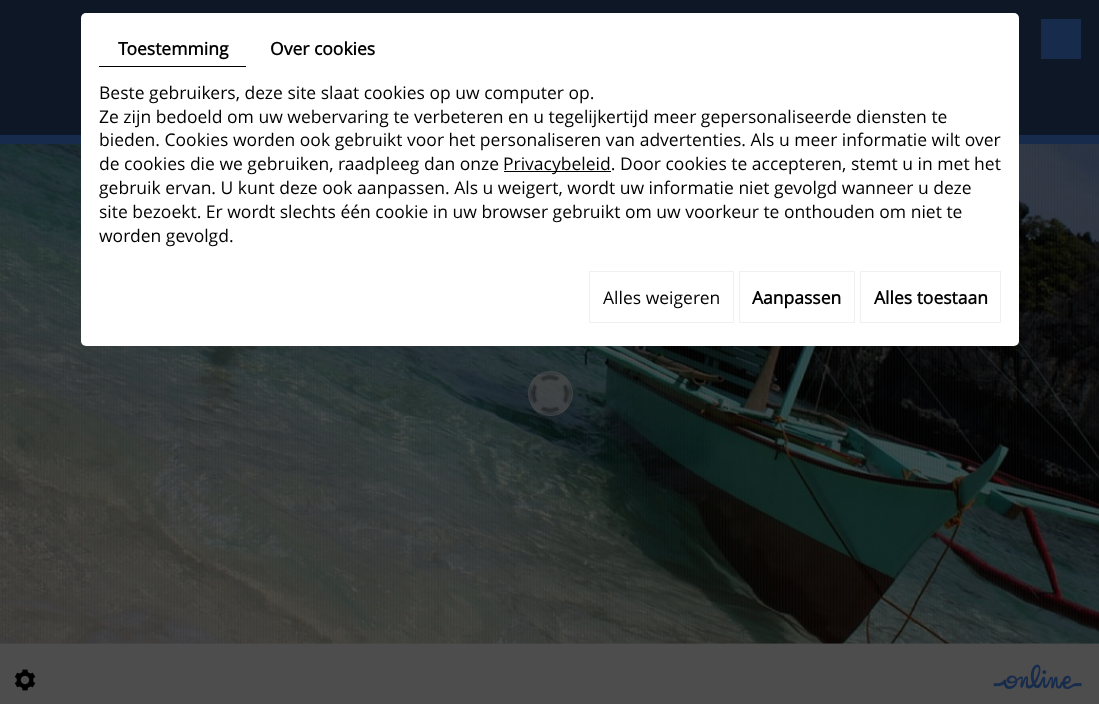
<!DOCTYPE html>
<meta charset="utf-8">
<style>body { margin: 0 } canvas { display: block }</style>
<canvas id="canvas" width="1099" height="704"></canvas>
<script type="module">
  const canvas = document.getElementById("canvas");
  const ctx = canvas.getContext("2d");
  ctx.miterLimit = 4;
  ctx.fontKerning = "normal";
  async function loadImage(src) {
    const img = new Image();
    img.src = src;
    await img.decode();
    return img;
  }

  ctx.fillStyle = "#4d4d4d";
  ctx.fillRect(0, 0, 1099, 704);
  ctx.fillStyle = "#0e1725";
  ctx.fillRect(0, 0, 1099, 135);
  ctx.fillStyle = "#172c4c";
  ctx.fillRect(0, 135, 1099, 9);
  ctx.fillRect(1041, 19, 40, 40);
  ctx.drawImage(await loadImage("img1.png"), 0, 144, 1099, 500);
  ctx.fillStyle = "rgba(77, 77, 77, 0.46)";
  ctx.beginPath();
  ctx.arc(550.5, 393.5, 22.5, 0, Math.PI * 2);
  ctx.fill();
  ctx.drawImage(await loadImage("img2.png"), 531, 375, 38, 38);
  ctx.beginPath();
  ctx.arc(550.5, 393.5, 22, 0, Math.PI * 2);
  ctx.strokeStyle = "rgba(77, 77, 77, 0.51)";
  ctx.stroke();
  ctx.fillStyle = "#ffffff";
  ctx.beginPath();
  ctx.roundRect(81, 13, 938, 333, 5);
  ctx.fill();
  ctx.fillStyle = "#000000";
  ctx.fillRect(99, 66, 147, 1);
  ctx.font = "bold 17.5px Open Sans";
  ctx.fillText("Toestemming", 118, 55);
  ctx.fillText("Over cookies", 270, 55);
  ctx.font = "17.5px Open Sans";
  ctx.fillText("Beste gebruikers, deze site slaat cookies op uw computer op.", 99, 99);
  ctx.fillText("Ze zijn bedoeld om uw webervaring te verbeteren en u tegelijkertijd meer gepersonaliseerde diensten te", 99, 123);
  ctx.fillText("bieden. Cookies worden ook gebruikt voor het personaliseren van advertenties. Als u meer informatie wilt over", 99, 146);
  ctx.fillText("de cookies die we gebruiken, raadpleeg dan onze", 99, 170);
  ctx.fillRect(504, 171, 107, 1);
  ctx.fillText("Privacybeleid. Door cookies te accepteren, stemt u in met het", 503, 170);
  ctx.fillText("gebruik ervan. U kunt deze ook aanpassen. Als u weigert, wordt uw informatie niet gevolgd wanneer u deze", 99, 194);
  ctx.fillText("site bezoekt. Er wordt slechts één cookie in uw browser gebruikt om uw voorkeur te onthouden om niet te", 99, 218);
  ctx.fillText("worden gevolgd.", 99, 242);
  ctx.strokeStyle = "#f0f0f0";
  ctx.strokeRect(589.5, 271.5, 144, 51);
  ctx.fillText("Alles weigeren", 603, 304);
  ctx.strokeRect(739.5, 271.5, 115, 51);
  ctx.font = "bold 17.5px Open Sans";
  ctx.fillText("Aanpassen", 752, 304);
  ctx.strokeRect(860.5, 271.5, 140, 51);
  ctx.fillText("Alles toestaan", 874, 304);
  ctx.drawImage(await loadImage("img3.png"), 14, 669, 22, 22);
  ctx.drawImage(await loadImage("img4.png"), 993, 664, 89, 25);
</script>
